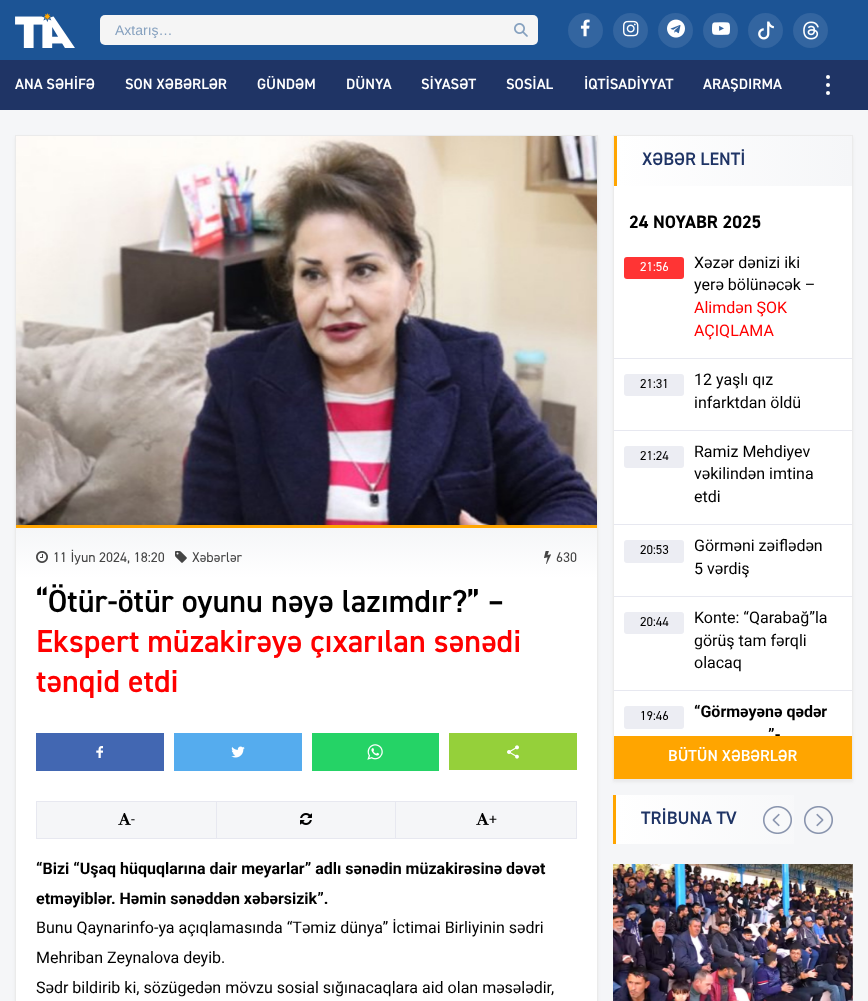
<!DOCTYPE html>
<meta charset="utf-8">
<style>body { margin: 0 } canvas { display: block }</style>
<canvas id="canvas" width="868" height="1001"></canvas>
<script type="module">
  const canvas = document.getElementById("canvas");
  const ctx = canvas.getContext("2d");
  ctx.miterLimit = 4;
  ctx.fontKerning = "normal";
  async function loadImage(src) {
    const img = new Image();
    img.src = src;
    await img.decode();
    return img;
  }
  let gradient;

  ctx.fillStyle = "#f5f6f8";
  ctx.fillRect(0, 0, 868, 1001);
  ctx.fillStyle = "#1c5495";
  ctx.fillRect(0, 0, 868, 60);
  ctx.drawImage(await loadImage("img1.png"), 15, 13, 60, 35);
  ctx.fillStyle = "#f5f5f5";
  ctx.beginPath();
  ctx.roundRect(100, 15, 438, 30, 5);
  ctx.fill();
  ctx.drawImage(await loadImage("img2.png"), 514, 23, 14, 14);
  ctx.font = "14px Liberation Sans";
  ctx.fillStyle = "#86a1bf";
  ctx.fillText("Axtarış…", 115, 35);
  ctx.fillStyle = "#3365a0";
  ctx.beginPath();
  ctx.arc(585.5, 30.5, 17.5, 0, Math.PI * 2);
  ctx.fill();
  ctx.drawImage(await loadImage("img3.png"), 580, 19, 10, 18);
  ctx.beginPath();
  ctx.arc(630.5, 30.5, 17.5, 0, Math.PI * 2);
  ctx.fill();
  ctx.drawImage(await loadImage("img4.png"), 623, 20, 16, 17);
  ctx.beginPath();
  ctx.arc(675.5, 30.5, 17.5, 0, Math.PI * 2);
  ctx.fill();
  ctx.drawImage(await loadImage("img5.png"), 667, 19, 18, 19);
  ctx.beginPath();
  ctx.arc(720.5, 30.5, 17.5, 0, Math.PI * 2);
  ctx.fill();
  ctx.drawImage(await loadImage("img6.png"), 712, 22, 18, 13);
  ctx.beginPath();
  ctx.arc(765.5, 30.5, 17.5, 0, Math.PI * 2);
  ctx.fill();
  ctx.drawImage(await loadImage("img7.png"), 758, 21, 16, 19);
  ctx.beginPath();
  ctx.arc(810.5, 30.5, 17.5, 0, Math.PI * 2);
  ctx.fill();
  ctx.drawImage(await loadImage("img8.png"), 803, 21, 16, 19);
  ctx.fillStyle = "#1f3465";
  ctx.fillRect(0, 60, 868, 50);
  ctx.font = "600 15px 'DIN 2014'";
  ctx.fillStyle = "#ffffff";
  ctx.fillText("ANA SƏHİFƏ", 15, 89);
  ctx.fillText("SON XƏBƏRLƏR", 125, 89);
  ctx.fillText("GÜNDƏM", 257, 89);
  ctx.fillText("DÜNYA", 346, 89);
  ctx.fillText("SİYASƏT", 421, 89);
  ctx.fillText("SOSİAL", 506, 89);
  ctx.fillText("İQTİSADİYYAT", 584, 89);
  ctx.fillText("ARAŞDIRMA", 703, 89);
  ctx.beginPath();
  ctx.arc(828, 77, 2, 0, Math.PI * 2);
  ctx.fill();
  ctx.beginPath();
  ctx.arc(828, 85, 2, 0, Math.PI * 2);
  ctx.fill();
  ctx.beginPath();
  ctx.arc(828, 93, 2, 0, Math.PI * 2);
  ctx.fill();
  ctx.fillStyle = "rgba(204, 204, 204, 0.3)";
  ctx.filter = "blur(1.5px)";
  ctx.beginPath();
  ctx.rect(15, 137, 583, 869);
  ctx.fill();
  ctx.filter = "none";
  ctx.fillStyle = "#ffffff";
  ctx.fillRect(16, 578, 581, 423);
  ctx.strokeStyle = "#ebebeb";
  ctx.strokeRect(15.5, 135.5, 582, 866);
  ctx.drawImage(await loadImage("img9.png"), 16, 136, 581, 389);
  gradient = ctx.createLinearGradient(307, 578, 307, 528);
  gradient.addColorStop(0, "#ffffff");
  gradient.addColorStop(1, "#f5f6f8");
  ctx.fillStyle = gradient;
  ctx.fillRect(16, 528, 581, 50);
  ctx.fillStyle = "#ffa500";
  ctx.fillRect(16, 525, 581, 3);
  ctx.drawImage(await loadImage("img10.png"), 36, 551, 12, 12);
  ctx.font = "14px 'DIN 2014'";
  ctx.fillStyle = "#444444";
  ctx.fillText("11 İyun 2024, 18:20", 53, 562);
  ctx.drawImage(await loadImage("img11.png"), 175, 551, 12, 12);
  ctx.fillText("Xəbərlər", 192, 562);
  ctx.drawImage(await loadImage("img12.png"), 544, 551, 7, 13);
  ctx.fillText("630", 556, 562);
  ctx.font = "600 32px 'DIN 2014'";
  ctx.fillStyle = "#000000";
  ctx.fillText("“Ötür-ötür oyunu nəyə lazımdır?” –", 36, 612);
  ctx.fillStyle = "#ff0000";
  ctx.fillText("Ekspert müzakirəyə çıxarılan sənədi", 36, 652);
  ctx.fillText("tənqid etdi", 36, 692);
  ctx.fillStyle = "#4267b2";
  ctx.fillRect(36, 733, 128, 38);
  ctx.drawImage(await loadImage("img13.png"), 96, 746, 7, 12);
  ctx.fillStyle = "#55acee";
  ctx.fillRect(174, 733, 128, 38);
  ctx.drawImage(await loadImage("img14.png"), 231, 746, 14, 12);
  ctx.fillStyle = "#25d366";
  ctx.fillRect(312, 733, 127, 38);
  ctx.drawImage(await loadImage("img15.png"), 367, 744, 16, 16);
  ctx.fillStyle = "#95d03a";
  ctx.fillRect(449, 733, 128, 37);
  ctx.drawImage(await loadImage("img16.png"), 507, 745, 12, 14);
  ctx.strokeStyle = "#e7e8f0";
  ctx.strokeRect(36.5, 801.5, 540, 37);
  ctx.fillStyle = "#f5f6f8";
  ctx.fillRect(37, 802, 179, 36);
  ctx.fillStyle = "#e7e8f0";
  ctx.fillRect(216, 802, 1, 36);
  ctx.drawImage(await loadImage("img17.png"), 118, 813, 13, 12);
  ctx.font = "14px Roboto";
  ctx.fillStyle = "#000000";
  ctx.fillText("-", 131, 824);
  ctx.fillStyle = "#f5f6f8";
  ctx.fillRect(217, 802, 178, 36);
  ctx.fillStyle = "#e7e8f0";
  ctx.fillRect(395, 802, 1, 36);
  ctx.drawImage(await loadImage("img18.png"), 300, 813, 12, 12);
  ctx.fillStyle = "#f5f6f8";
  ctx.fillRect(396, 802, 180, 36);
  ctx.drawImage(await loadImage("img17.png"), 476, 813, 13, 12);
  ctx.fillStyle = "#000000";
  ctx.fillText("+", 489, 824);
  ctx.font = "bold 16px Roboto";
  ctx.fillText("“Bizi “Uşaq hüquqlarına dair meyarlar” adlı sənədin müzakirəsinə dəvət", 36, 874);
  ctx.fillText("etməyiblər. Həmin sənəddən xəbərsizik”.", 36, 904);
  ctx.font = "16px Roboto";
  ctx.fillText("Bunu Qaynarinfo-ya açıqlamasında “Təmiz dünya” İctimai Birliyinin sədri", 36, 933);
  ctx.fillText("Mehriban Zeynalova deyib.", 36, 963);
  ctx.fillText("Sədr bildirib ki, sözügedən mövzu sosial sığınacaqlara aid olan məsələdir,", 36, 993);
  ctx.fillStyle = "rgba(204, 204, 204, 0.3)";
  ctx.filter = "blur(1.5px)";
  ctx.beginPath();
  ctx.rect(613, 137, 240, 645);
  ctx.fill();
  ctx.filter = "none";
  ctx.fillStyle = "#ffffff";
  ctx.fillRect(614, 186, 238, 550);
  ctx.strokeStyle = "#ebebeb";
  ctx.strokeRect(613.5, 135.5, 239, 644);
  gradient = ctx.createLinearGradient(617, 161, 852, 161);
  gradient.addColorStop(0, "#ffffff");
  gradient.addColorStop(1, "#f5f6f8");
  ctx.fillStyle = gradient;
  ctx.fillRect(617, 136, 235, 50);
  ctx.fillStyle = "#ffa500";
  ctx.fillRect(614, 136, 3, 50);
  ctx.font = "600 18px 'DIN 2014'";
  ctx.fillStyle = "#1f3465";
  ctx.fillText("XƏBƏR LENTİ", 642, 165);
  ctx.font = "bold 18px 'DIN 2014'";
  ctx.fillStyle = "#000000";
  ctx.fillText("24 NOYABR 2025", 629, 228);
  ctx.fillStyle = "#e7e8f0";
  ctx.fillRect(614, 358, 238, 1);
  ctx.fillStyle = "#ff3434";
  ctx.beginPath();
  ctx.roundRect(624, 257, 60, 22, 3);
  ctx.fill();
  ctx.font = "13px 'DIN 2014'";
  ctx.fillStyle = "#ffffff";
  ctx.fillText("21:56", 640, 271);
  ctx.font = "16px Roboto";
  ctx.fillStyle = "#000000";
  ctx.fillText("Xəzər dənizi iki", 694, 268);
  ctx.fillText("yerə bölünəcək –", 694, 290);
  ctx.fillStyle = "#ff0000";
  ctx.fillText("Alimdən ŞOK", 694, 313);
  ctx.fillText("AÇIQLAMA", 694, 336);
  ctx.fillStyle = "#e7e8f0";
  ctx.fillRect(614, 430, 238, 1);
  ctx.fillStyle = "#ecedf3";
  ctx.beginPath();
  ctx.roundRect(624, 374, 60, 22, 3);
  ctx.fill();
  ctx.font = "13px 'DIN 2014'";
  ctx.fillStyle = "#000000";
  ctx.fillText("21:31", 640, 388);
  ctx.font = "16px Roboto";
  ctx.fillText("12 yaşlı qız", 694, 385);
  ctx.fillText("infarktdan öldü", 694, 408);
  ctx.fillStyle = "#e7e8f0";
  ctx.fillRect(614, 524, 238, 1);
  ctx.fillStyle = "#ecedf3";
  ctx.beginPath();
  ctx.roundRect(624, 446, 60, 22, 3);
  ctx.fill();
  ctx.font = "13px 'DIN 2014'";
  ctx.fillStyle = "#000000";
  ctx.fillText("21:24", 640, 460);
  ctx.font = "16px Roboto";
  ctx.fillText("Ramiz Mehdiyev", 694, 457);
  ctx.fillText("vəkilindən imtina", 694, 479);
  ctx.fillText("etdi", 694, 502);
  ctx.fillStyle = "#e7e8f0";
  ctx.fillRect(614, 596, 238, 1);
  ctx.fillStyle = "#ecedf3";
  ctx.beginPath();
  ctx.roundRect(624, 540, 60, 23, 3);
  ctx.fill();
  ctx.font = "13px 'DIN 2014'";
  ctx.fillStyle = "#000000";
  ctx.fillText("20:53", 640, 554);
  ctx.font = "16px Roboto";
  ctx.fillText("Görməni zəiflədən", 694, 551);
  ctx.fillText("5 vərdiş", 694, 574);
  ctx.fillStyle = "#e7e8f0";
  ctx.fillRect(614, 690, 238, 1);
  ctx.fillStyle = "#ecedf3";
  ctx.beginPath();
  ctx.roundRect(624, 612, 60, 22, 3);
  ctx.fill();
  ctx.font = "13px 'DIN 2014'";
  ctx.fillStyle = "#000000";
  ctx.fillText("20:44", 640, 626);
  ctx.font = "16px Roboto";
  ctx.fillText("Konte: “Qarabağ”la", 694, 623);
  ctx.fillText("görüş tam fərqli", 694, 646);
  ctx.fillText("olacaq", 694, 668);
  ctx.fillStyle = "#ecedf3";
  ctx.beginPath();
  ctx.roundRect(624, 706, 60, 23, 3);
  ctx.fill();
  ctx.font = "13px 'DIN 2014'";
  ctx.fillStyle = "#000000";
  ctx.fillText("19:46", 640, 720);
  ctx.font = "bold 16px Roboto";
  ctx.fillText("“Görməyənə qədər", 694, 717);
  ctx.fillText("”-", 768, 740);
  ctx.fillStyle = "#ffa500";
  ctx.fillRect(614, 736, 238, 43);
  ctx.font = "600 16px 'DIN 2014'";
  ctx.fillStyle = "#ffffff";
  ctx.fillText("BÜTÜN XƏBƏRLƏR", 668, 761);
  gradient = ctx.createLinearGradient(616, 820, 853, 820);
  gradient.addColorStop(0, "#ffffff");
  gradient.addColorStop(1, "#f5f6f8");
  ctx.fillStyle = gradient;
  ctx.fillRect(616, 795, 178, 49);
  ctx.drawImage(await loadImage("img19.png"), 763, 806, 29, 28);
  ctx.drawImage(await loadImage("img20.png"), 804, 806, 29, 28);
  ctx.drawImage(await loadImage("img21.png"), 613, 864, 240, 137);
  ctx.fillStyle = "#ffa500";
  ctx.fillRect(613, 795, 3, 49);
  ctx.font = "600 18px 'DIN 2014'";
  ctx.fillStyle = "#1f3465";
  ctx.fillText("TRİBUNA TV", 641, 824);
</script>
